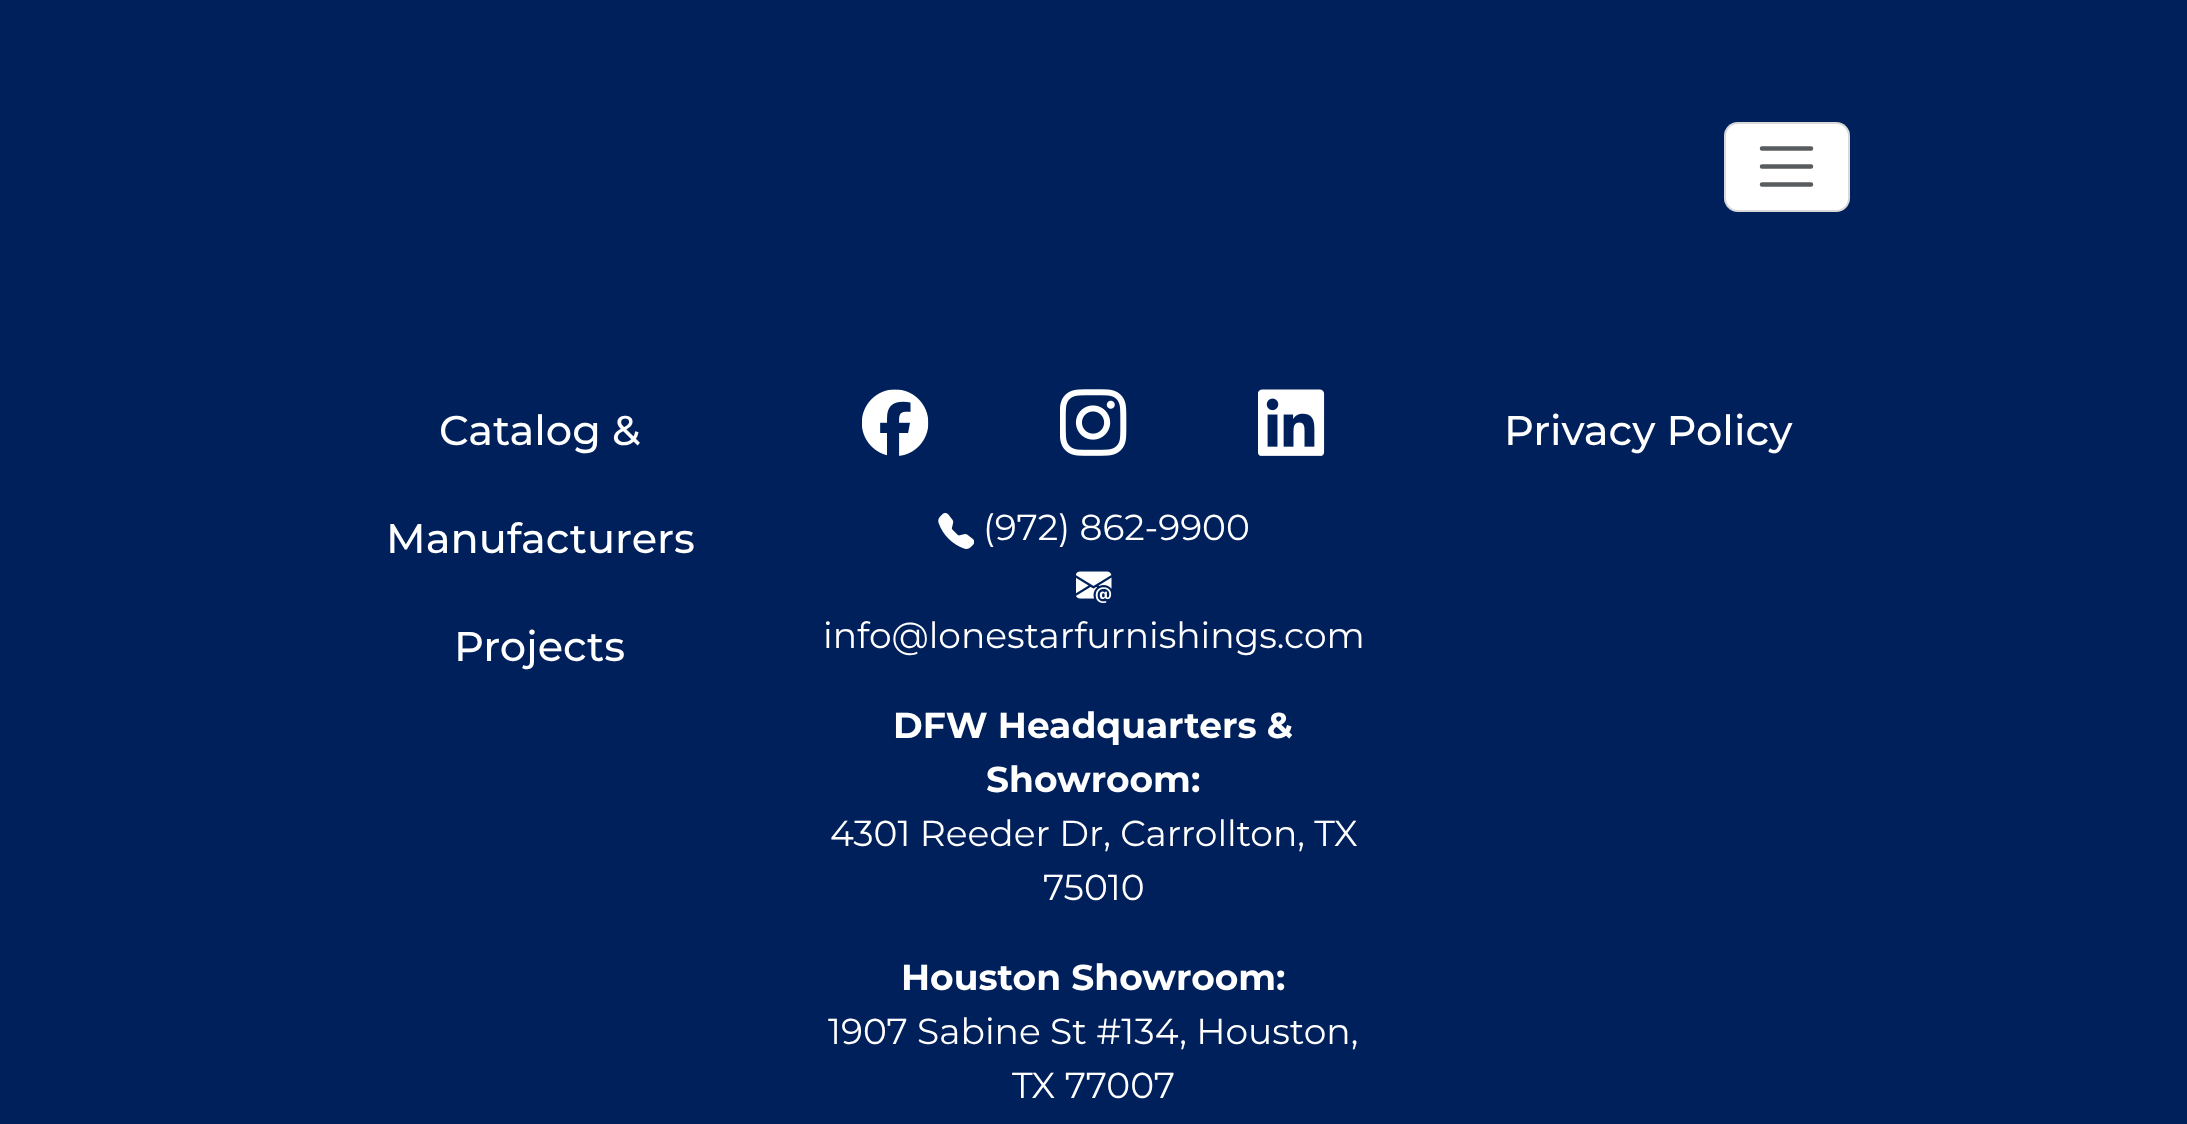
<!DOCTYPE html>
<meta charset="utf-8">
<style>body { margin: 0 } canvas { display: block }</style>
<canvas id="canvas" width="2187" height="1124"></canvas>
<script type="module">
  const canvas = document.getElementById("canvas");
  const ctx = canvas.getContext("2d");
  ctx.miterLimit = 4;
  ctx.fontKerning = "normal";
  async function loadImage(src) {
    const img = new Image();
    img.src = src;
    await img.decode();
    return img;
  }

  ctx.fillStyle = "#00205b";
  ctx.fillRect(0, 0, 2187, 1124);
  ctx.fillStyle = "#ffffff";
  ctx.beginPath();
  ctx.roundRect(1724, 122, 126, 90, 14);
  ctx.fill();
  ctx.beginPath();
  ctx.roundRect(1725, 123, 124, 88, 13);
  ctx.strokeStyle = "rgba(0, 0, 0, 0.15)";
  ctx.lineWidth = 2;
  ctx.stroke();
  ctx.beginPath();
  ctx.moveTo(1762, 148.5);
  ctx.lineTo(1811, 148.5);
  ctx.moveTo(1762, 166.5);
  ctx.lineTo(1811, 166.5);
  ctx.moveTo(1762, 184.5);
  ctx.lineTo(1811, 184.5);
  ctx.strokeStyle = "#595c5f";
  ctx.lineWidth = 4.5;
  ctx.lineCap = "round";
  ctx.stroke();
  ctx.font = "500 41.5px Montserrat";
  ctx.fillText("Catalog &", 439, 445);
  ctx.fillText("Manufacturers", 386, 553);
  ctx.fillText("Projects", 454, 661);
  ctx.drawImage(await loadImage("img1.png"), 862, 389, 67, 67);
  ctx.drawImage(await loadImage("img2.png"), 1060, 389, 67, 67);
  ctx.drawImage(await loadImage("img3.png"), 1258, 389, 67, 67);
  ctx.drawImage(await loadImage("img4.png"), 938, 513, 36, 36);
  ctx.font = "36px Montserrat";
  ctx.fillText("(972) 862-9900", 983, 540);
  ctx.drawImage(await loadImage("img5.png"), 1076, 571, 36, 32);
  ctx.fillText("info@lonestarfurnishings.com", 823, 648);
  ctx.font = "bold 36px Montserrat";
  ctx.fillText("DFW Headquarters &", 893, 738);
  ctx.fillText("Showroom:", 986, 792);
  ctx.font = "36px Montserrat";
  ctx.fillText("4301 Reeder Dr, Carrollton, TX", 830, 846);
  ctx.fillText("75010", 1043, 900);
  ctx.font = "bold 36px Montserrat";
  ctx.fillText("Houston Showroom:", 901, 990);
  ctx.font = "36px Montserrat";
  ctx.fillText("1907 Sabine St #134, Houston,", 828, 1044);
  ctx.fillText("TX 77007", 1012, 1098);
  ctx.font = "500 41.5px Montserrat";
  ctx.fillText("Privacy Policy", 1504, 445);
</script>
